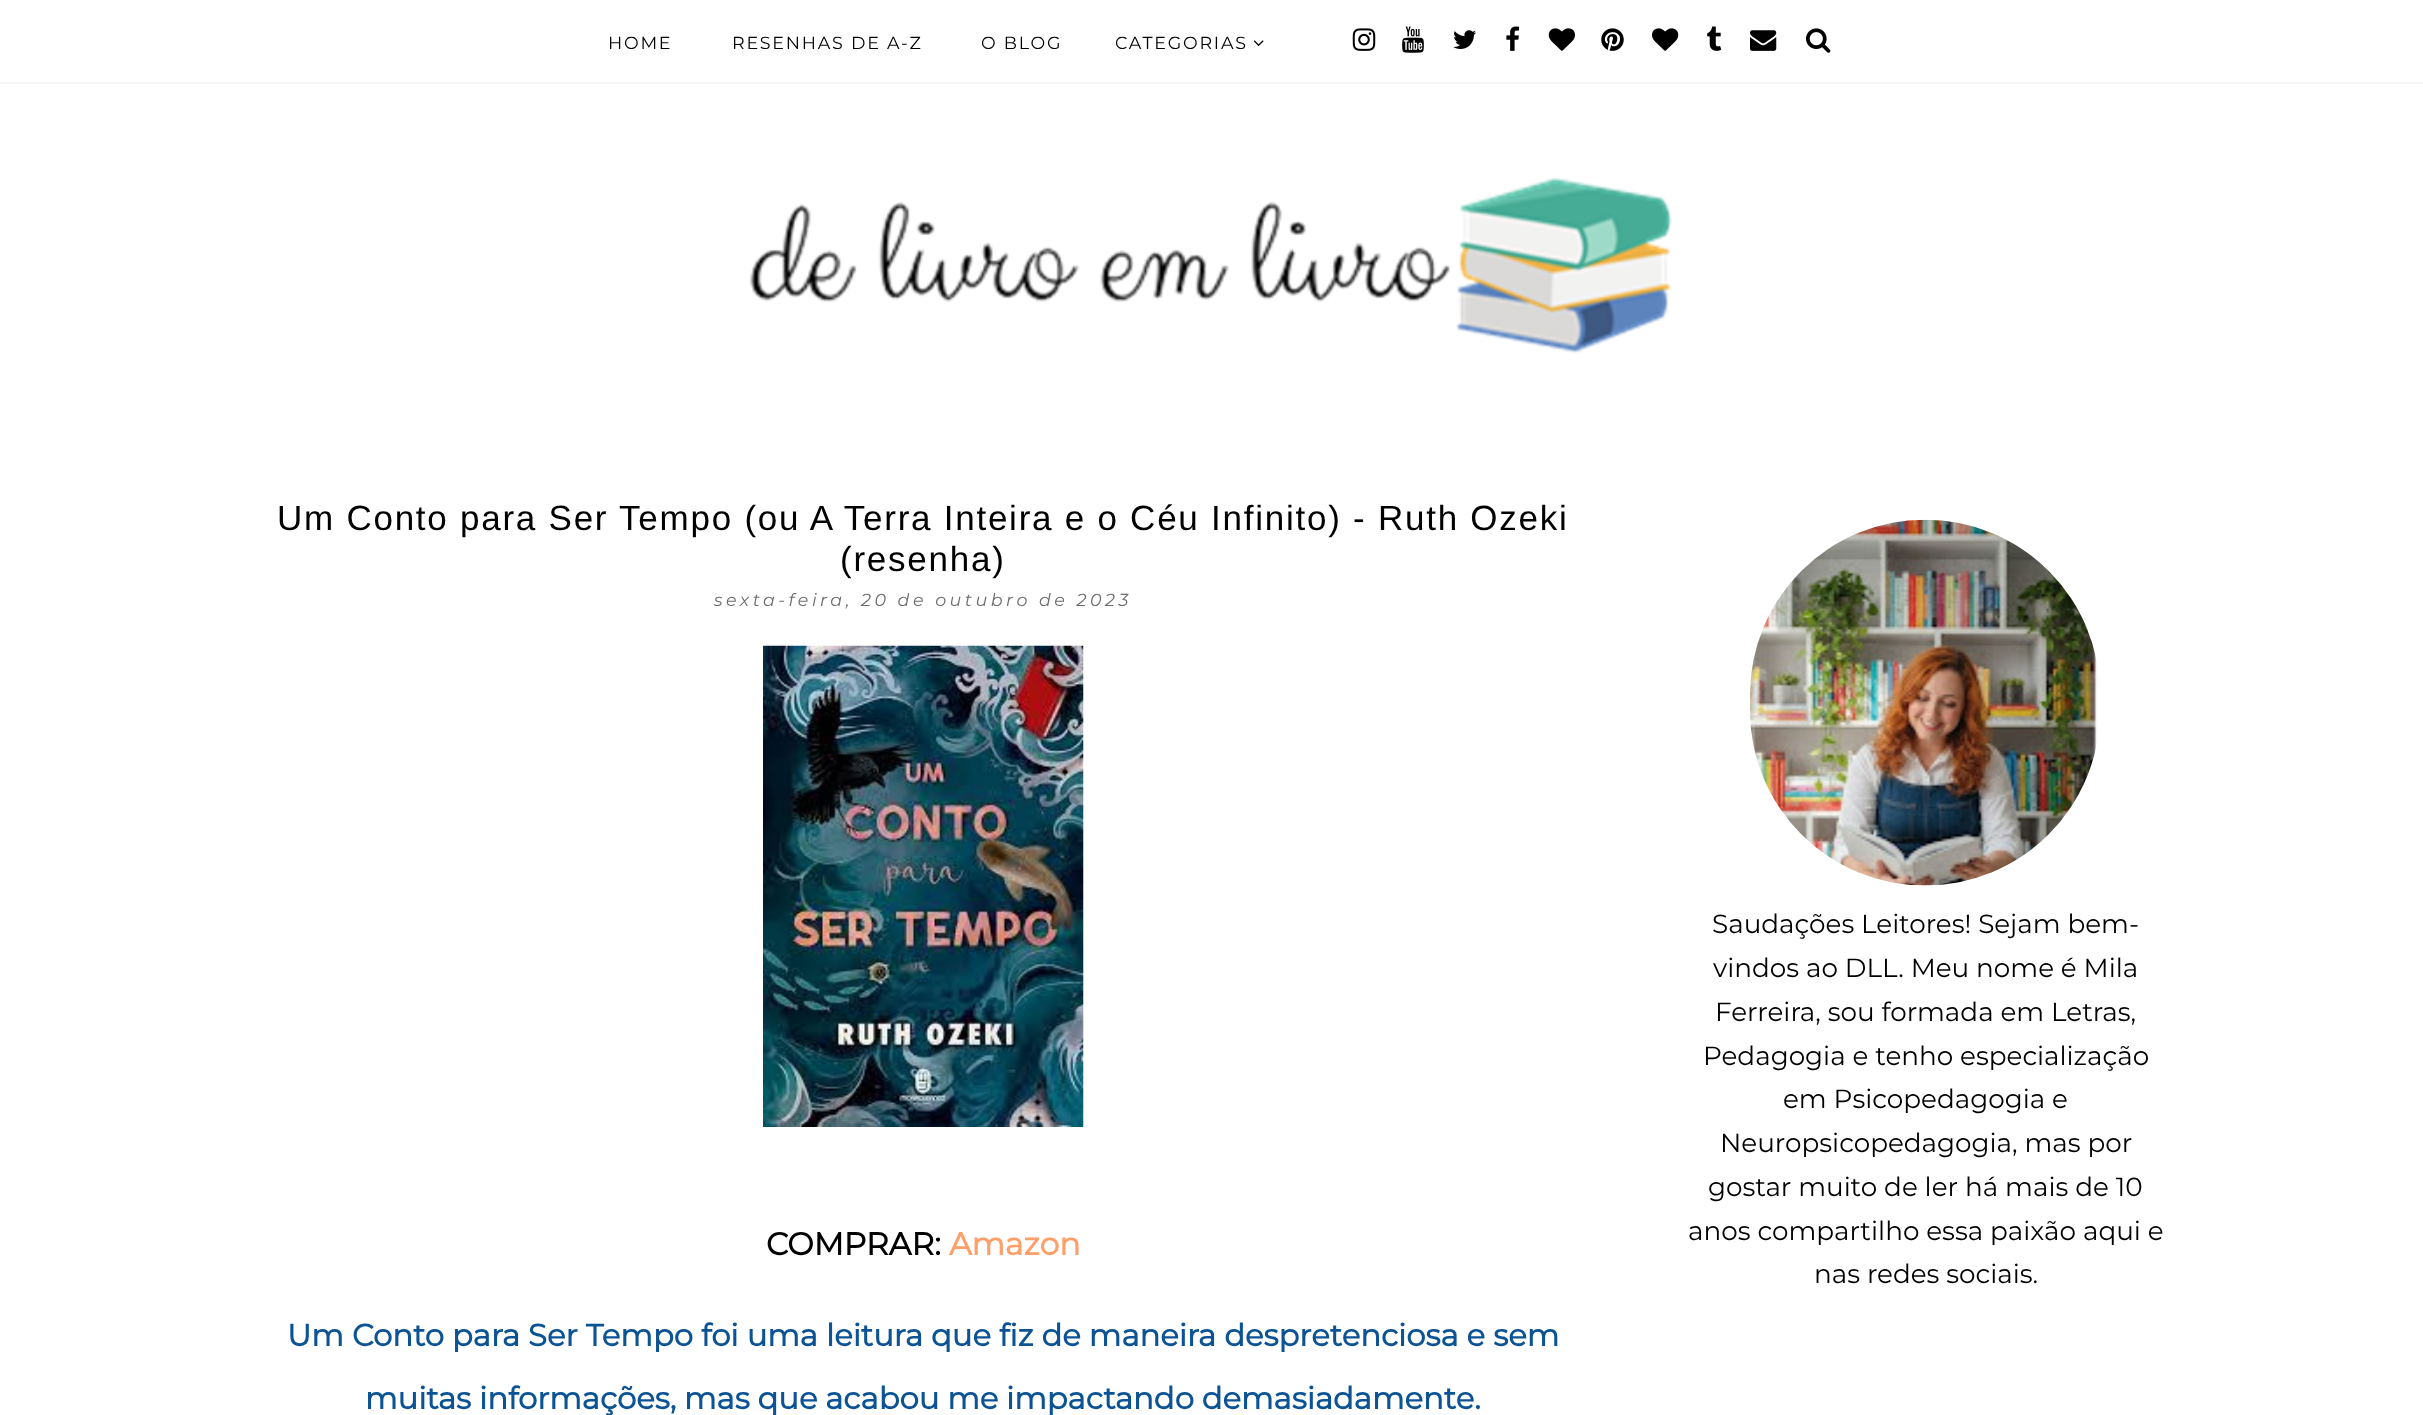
<!DOCTYPE html>
<meta charset="utf-8">
<style>body { margin: 0 } canvas { display: block }</style>
<canvas id="canvas" width="2423" height="1415"></canvas>
<script type="module">
  const canvas = document.getElementById("canvas");
  const ctx = canvas.getContext("2d");
  ctx.miterLimit = 4;
  ctx.fontKerning = "normal";
  async function loadImage(src) {
    const img = new Image();
    img.src = src;
    await img.decode();
    return img;
  }

  ctx.fillStyle = "#ffffff";
  ctx.fillRect(0, 0, 2423, 1415);
  ctx.fillStyle = "#f6f6f6";
  ctx.fillRect(0, 82, 2423, 2);
  ctx.letterSpacing = "1.75px";
  ctx.font = "100 17.5px Montserrat";
  ctx.fillStyle = "#000000";
  ctx.fillText("HOME", 608, 49);
  ctx.fillText("RESENHAS DE A-Z", 732, 49);
  ctx.fillText("O BLOG", 981, 49);
  ctx.fillText("CATEGORIAS", 1115, 49);
  ctx.drawImage(await loadImage("img1.png"), 1253, 40, 11, 6);
  ctx.drawImage(await loadImage("img2.png"), 1352, 28, 24, 23);
  ctx.drawImage(await loadImage("img3.png"), 1402, 26, 22, 27);
  ctx.drawImage(await loadImage("img4.png"), 1453, 30, 24, 19);
  ctx.drawImage(await loadImage("img5.png"), 1506, 26, 14, 25);
  ctx.drawImage(await loadImage("img6.png"), 1548, 28, 27, 23);
  ctx.drawImage(await loadImage("img7.png"), 1601, 28, 23, 23);
  ctx.drawImage(await loadImage("img8.png"), 1652, 28, 27, 23);
  ctx.drawImage(await loadImage("img9.png"), 1707, 26, 15, 25);
  ctx.drawImage(await loadImage("img10.png"), 1750, 30, 27, 21);
  ctx.drawImage(await loadImage("img11.png"), 1806, 28, 25, 25);
  ctx.drawImage(await loadImage("img12.png"), 749, 177, 923, 177);
  ctx.font = "35px Liberation Sans";
  ctx.fillText("Um Conto para Ser Tempo (ou A Terra Inteira e o Céu Infinito) - Ruth Ozeki", 277, 530);
  ctx.fillText("(resenha)", 840, 571);
  ctx.letterSpacing = "3.5px";
  ctx.font = "italic 100 17.5px Montserrat";
  ctx.fillStyle = "#6d6d6d";
  ctx.fillText("sexta-feira, 20 de outubro de 2023", 714, 606);
  ctx.drawImage(await loadImage("img13.png"), 763, 645, 321, 482);
  ctx.letterSpacing = "0px";
  ctx.font = "bold 31.5px Montserrat";
  ctx.fillStyle = "#000000";
  ctx.fillText("COMPRAR:", 766, 1255);
  ctx.fillStyle = "#ff9f69";
  ctx.fillText("Amazon", 949, 1255);
  ctx.font = "bold 30.7px Montserrat";
  ctx.fillStyle = "#0b5394";
  ctx.fillText("Um Conto para Ser Tempo", 287, 1346);
  ctx.fillText("foi uma leitura que fiz de maneira despretenciosa e sem", 701, 1346);
  ctx.wordSpacing = "-0.25px";
  ctx.fillText("muitas informações, mas que acabou me impactando demasiadamente.", 365, 1409);
  ctx.drawImage(await loadImage("img14.png"), 1750, 519, 350, 367);
  ctx.wordSpacing = "0px";
  ctx.font = "100 26.25px Montserrat";
  ctx.fillStyle = "#000000";
  ctx.fillText("Saudações Leitores! Sejam bem-", 1712, 933);
  ctx.fillText("vindos ao DLL. Meu nome é Mila", 1713, 977);
  ctx.fillText("Ferreira, sou formada em Letras,", 1715, 1021);
  ctx.fillText("Pedagogia e tenho especialização", 1703, 1065);
  ctx.fillText("em Psicopedagogia e", 1783, 1108);
  ctx.fillText("Neuropsicopedagogia, mas por", 1720, 1152);
  ctx.fillText("gostar muito de ler há mais de 10", 1708, 1196);
  ctx.fillText("anos compartilho essa paixão aqui e", 1688, 1240);
  ctx.fillText("nas redes sociais.", 1814, 1283);
</script>
